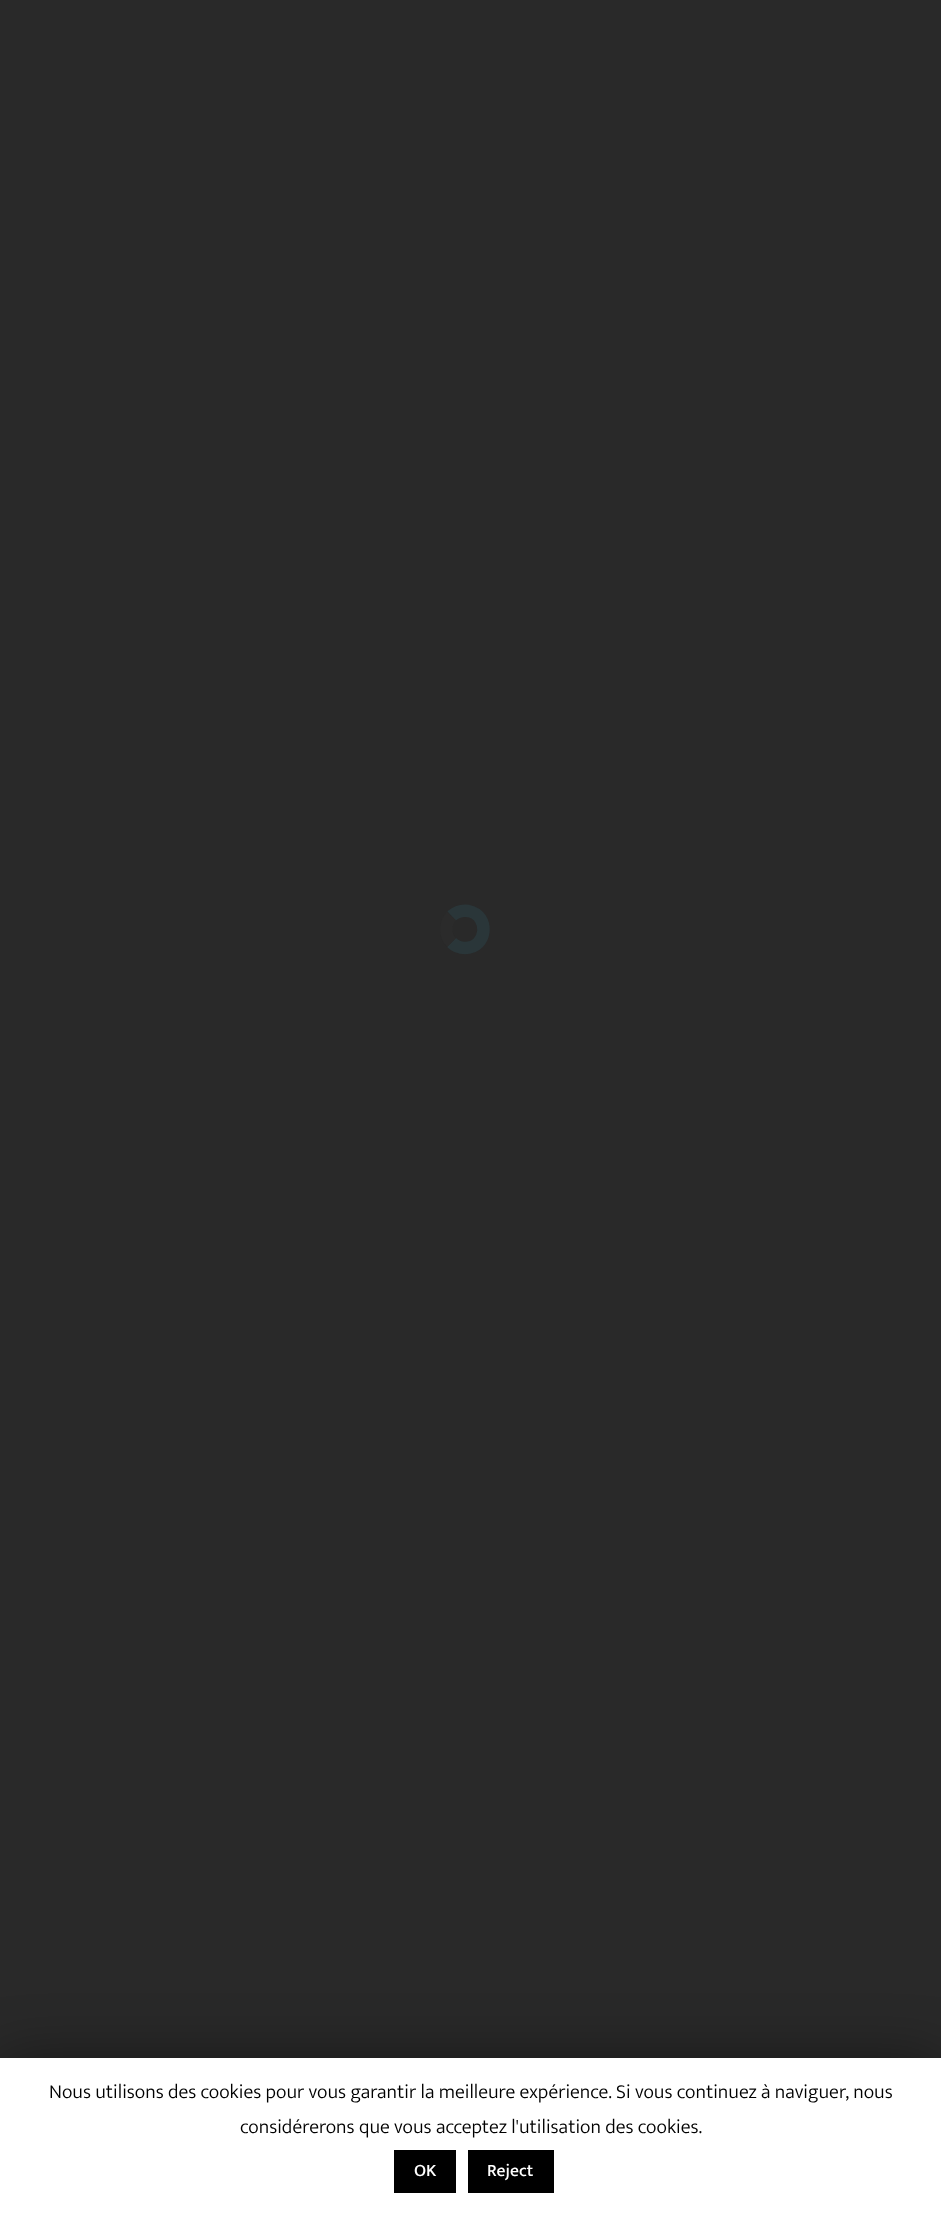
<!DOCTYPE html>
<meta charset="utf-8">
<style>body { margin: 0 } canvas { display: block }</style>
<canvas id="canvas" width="941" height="2215"></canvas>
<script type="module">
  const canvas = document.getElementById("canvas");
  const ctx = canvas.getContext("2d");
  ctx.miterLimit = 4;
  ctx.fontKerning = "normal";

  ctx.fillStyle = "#292929";
  ctx.fillRect(0, 0, 941, 2215);
  ctx.beginPath();
  ctx.moveTo(451.5, 916);
  ctx.bezierCurveTo(456, 912, 462.5, 910, 468.5, 911);
  ctx.bezierCurveTo(490.5, 915.5, 487.5, 948, 465, 948);
  ctx.bezierCurveTo(460, 948, 455, 946, 451.5, 942.5);
  ctx.strokeStyle = "#2a3639";
  ctx.lineWidth = 12.5;
  ctx.stroke();
  ctx.beginPath();
  ctx.moveTo(451.5, 942.5);
  ctx.bezierCurveTo(444.5, 935.5, 444.5, 923.5, 451.5, 916);
  ctx.strokeStyle = "#2b2b2b";
  ctx.stroke();
  ctx.fillStyle = "rgba(0, 0, 0, 0.5)";
  ctx.filter = "blur(31px)";
  ctx.beginPath();
  ctx.rect(0, 2064, 941, 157);
  ctx.fill();
  ctx.filter = "none";
  ctx.fillStyle = "#ffffff";
  ctx.fillRect(0, 2058, 941, 157);
  ctx.font = "300 20px Mukta";
  ctx.fillStyle = "#000000";
  ctx.fillText("Nous utilisons des cookies pour vous garantir la meilleure expérience. Si vous continuez à naviguer, nous", 49, 2098);
  ctx.fillText("considérerons que vous acceptez l'utilisation des cookies.", 240, 2133);
  ctx.fillRect(394, 2150, 62, 43);
  ctx.font = "500 17.5px Mukta";
  ctx.fillStyle = "#ffffff";
  ctx.fillText("OK", 414, 2176);
  ctx.fillStyle = "#000000";
  ctx.fillRect(468, 2150, 86, 43);
  ctx.fillStyle = "#ffffff";
  ctx.fillText("Reject", 487, 2176);
</script>
